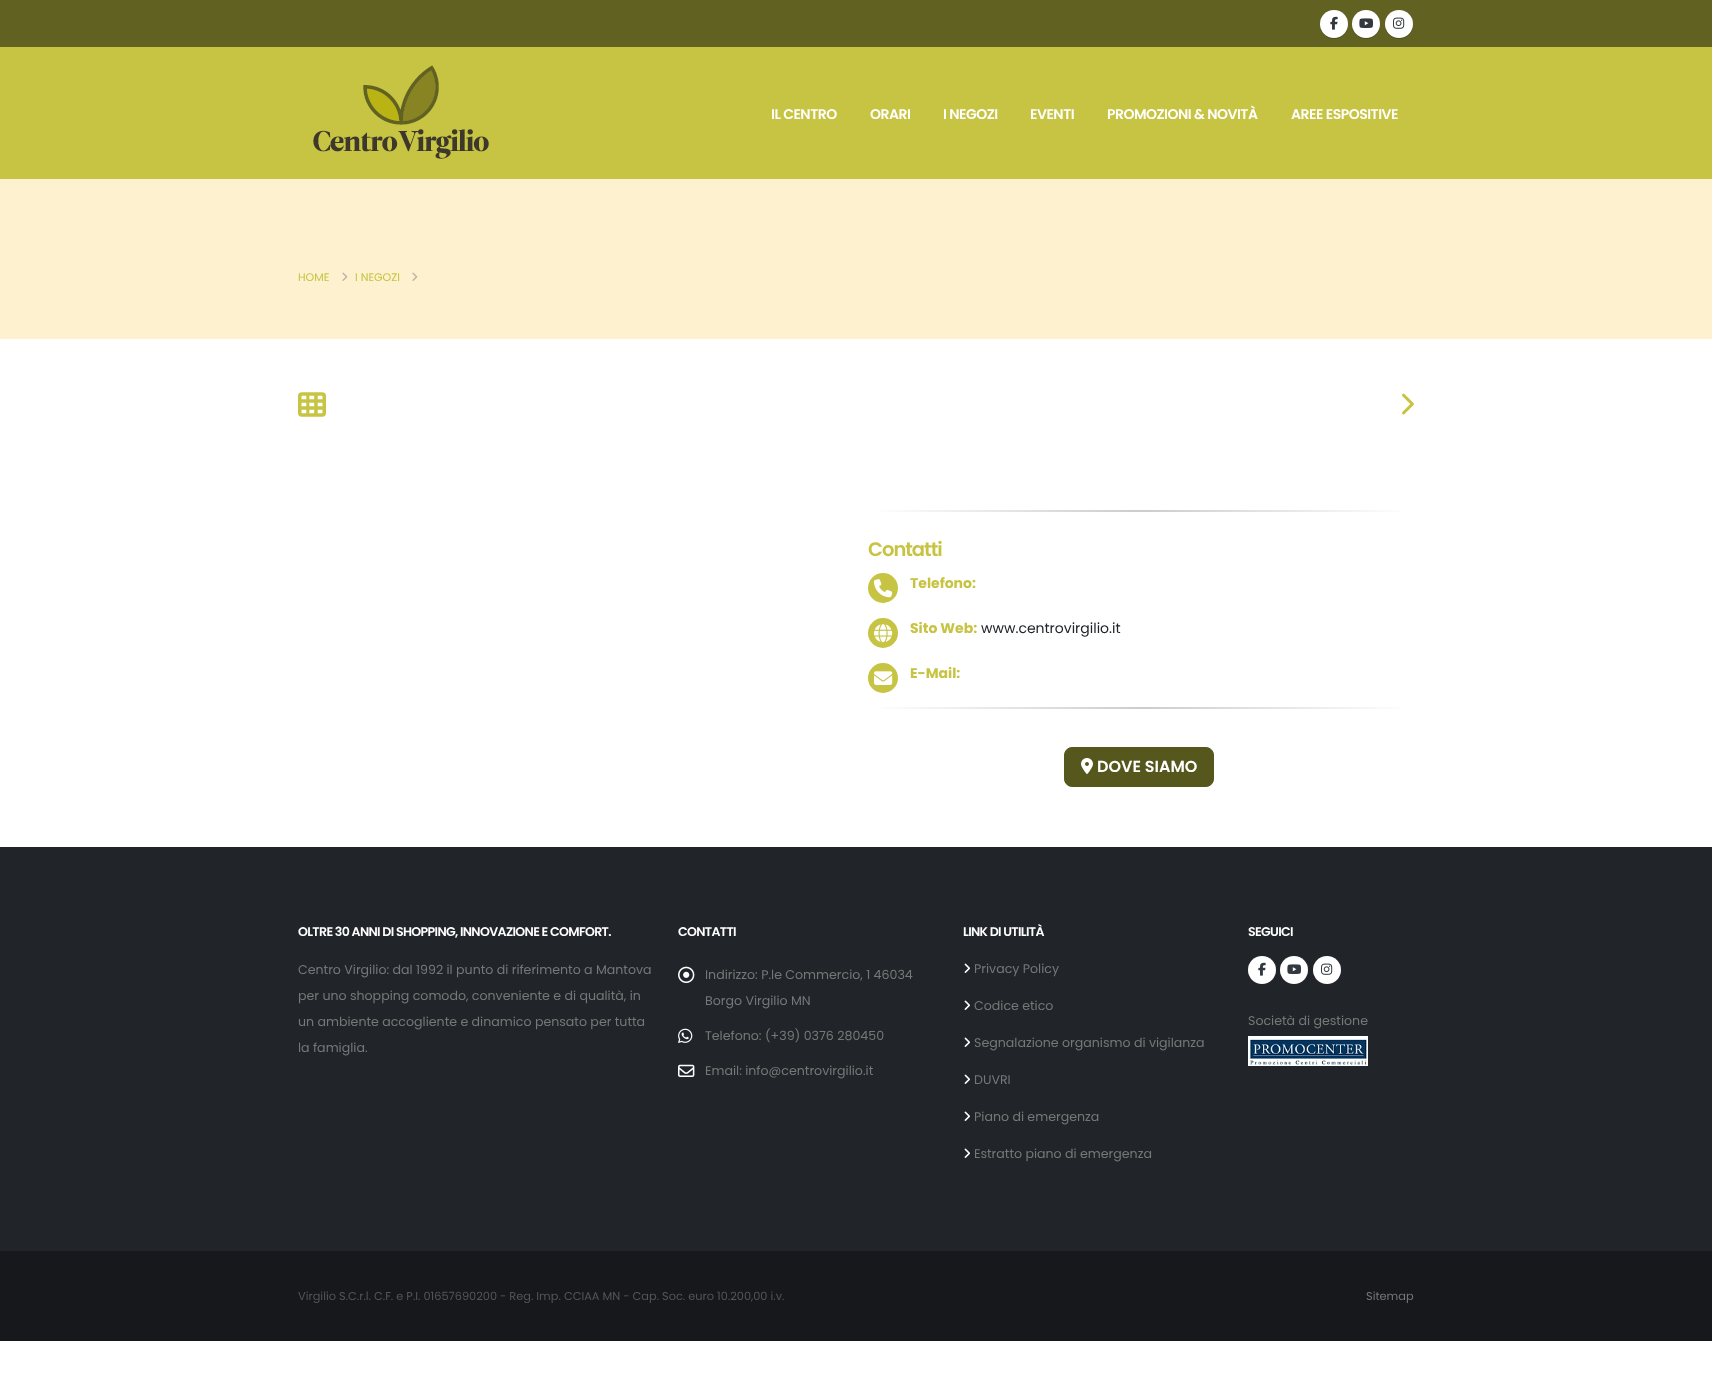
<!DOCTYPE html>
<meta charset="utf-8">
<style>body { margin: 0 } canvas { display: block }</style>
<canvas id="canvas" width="1712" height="1376"></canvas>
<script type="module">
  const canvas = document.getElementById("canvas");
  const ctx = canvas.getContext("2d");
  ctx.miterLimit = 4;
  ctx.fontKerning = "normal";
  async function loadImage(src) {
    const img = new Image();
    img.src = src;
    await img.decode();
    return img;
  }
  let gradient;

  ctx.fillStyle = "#ffffff";
  ctx.fillRect(0, 0, 1712, 1376);
  ctx.fillStyle = "#c7c343";
  ctx.fillRect(0, 47, 1712, 132);
  ctx.fillStyle = "#616221";
  ctx.fillRect(0, 0, 1712, 47);
  ctx.fillStyle = "rgba(0, 0, 0, 0.2)";
  ctx.filter = "blur(0.5px)";
  ctx.beginPath();
  ctx.roundRect(1320, 11, 28, 28, 14);
  ctx.fill();
  ctx.filter = "none";
  ctx.fillStyle = "#ffffff";
  ctx.beginPath();
  ctx.arc(1334, 24, 14, 0, Math.PI * 2);
  ctx.fill();
  ctx.drawImage(await loadImage("img1.png"), 1330, 16, 8, 14);
  ctx.fillStyle = "rgba(0, 0, 0, 0.2)";
  ctx.filter = "blur(0.5px)";
  ctx.beginPath();
  ctx.roundRect(1352, 11, 28, 28, 14);
  ctx.fill();
  ctx.filter = "none";
  ctx.fillStyle = "#ffffff";
  ctx.beginPath();
  ctx.arc(1366, 24, 14, 0, Math.PI * 2);
  ctx.fill();
  ctx.drawImage(await loadImage("img2.png"), 1359, 18, 15, 10);
  ctx.fillStyle = "rgba(0, 0, 0, 0.2)";
  ctx.filter = "blur(0.5px)";
  ctx.beginPath();
  ctx.roundRect(1385, 11, 28, 28, 14);
  ctx.fill();
  ctx.filter = "none";
  ctx.fillStyle = "#ffffff";
  ctx.beginPath();
  ctx.arc(1399, 24, 14, 0, Math.PI * 2);
  ctx.fill();
  ctx.drawImage(await loadImage("img3.png"), 1393, 17, 12, 12);
  ctx.drawImage(await loadImage("img4.png"), 313, 65, 176, 94);
  ctx.letterSpacing = "-0.5px";
  ctx.font = "600 14px Poppins";
  ctx.fillText("IL CENTRO", 771, 119);
  ctx.fillText("ORARI", 870, 119);
  ctx.fillText("I NEGOZI", 943, 119);
  ctx.fillText("EVENTI", 1030, 119);
  ctx.fillText("PROMOZIONI & NOVITÀ", 1107, 119);
  ctx.fillText("AREE ESPOSITIVE", 1291, 119);
  ctx.fillStyle = "#fef1cf";
  ctx.fillRect(0, 179, 1712, 160);
  ctx.letterSpacing = "0px";
  ctx.font = "11px Poppins";
  ctx.fillStyle = "#c7c343";
  ctx.fillText("HOME", 298, 281);
  ctx.drawImage(await loadImage("img5.png"), 342, 272, 6, 9);
  ctx.fillText("I NEGOZI", 355, 281);
  ctx.drawImage(await loadImage("img5.png"), 412, 272, 6, 9);
  ctx.drawImage(await loadImage("img6.png"), 298, 392, 28, 25);
  ctx.drawImage(await loadImage("img7.png"), 1402, 393, 12, 22);
  gradient = ctx.createLinearGradient(1414, 511, 868, 511);
  gradient.addColorStop(0, "#ffffff");
  gradient.addColorStop(0.5, "#cccccc");
  gradient.addColorStop(1, "#ffffff");
  ctx.fillStyle = gradient;
  ctx.fillRect(881, 510, 520, 2);
  ctx.letterSpacing = "-1px";
  ctx.font = "600 19.5px Poppins";
  ctx.fillStyle = "#c7c343";
  ctx.fillText("Contatti", 868, 556);
  ctx.beginPath();
  ctx.arc(883, 588, 15, 0, Math.PI * 2);
  ctx.fill();
  ctx.drawImage(await loadImage("img8.png"), 874, 579, 19, 19);
  ctx.letterSpacing = "0px";
  ctx.font = "bold 14px Poppins";
  ctx.fillText("Telefono:", 910, 588);
  ctx.beginPath();
  ctx.arc(883, 633, 15, 0, Math.PI * 2);
  ctx.fill();
  ctx.drawImage(await loadImage("img9.png"), 874, 624, 19, 19);
  ctx.fillText("Sito Web:", 910, 633);
  ctx.font = "14px Poppins";
  ctx.fillStyle = "#212529";
  ctx.fillText("www.centrovirgilio.it", 981, 633);
  ctx.fillStyle = "#c7c343";
  ctx.beginPath();
  ctx.arc(883, 678, 15, 0, Math.PI * 2);
  ctx.fill();
  ctx.drawImage(await loadImage("img10.png"), 874, 671, 19, 14);
  ctx.font = "bold 14px Poppins";
  ctx.fillText("E-Mail:", 910, 678);
  gradient = ctx.createLinearGradient(1414, 708, 868, 708);
  gradient.addColorStop(0, "#ffffff");
  gradient.addColorStop(0.5, "#cccccc");
  gradient.addColorStop(1, "#ffffff");
  ctx.fillStyle = gradient;
  ctx.fillRect(881, 707, 520, 2);
  ctx.fillStyle = "#56571d";
  ctx.beginPath();
  ctx.roundRect(1064.5, 747.5, 149, 39, 7.5);
  ctx.fill();
  ctx.strokeStyle = "#56571d";
  ctx.stroke();
  ctx.drawImage(await loadImage("img11.png"), 1081, 758, 12, 16);
  ctx.font = "600 16px Poppins";
  ctx.fillStyle = "#ffffff";
  ctx.fillText("DOVE SIAMO", 1097, 772);
  ctx.fillStyle = "#212529";
  ctx.fillRect(0, 847, 1712, 404);
  ctx.letterSpacing = "-0.65px";
  ctx.font = "600 12.6px Poppins";
  ctx.fillStyle = "#ffffff";
  ctx.fillText("OLTRE 30 ANNI DI SHOPPING, INNOVAZIONE E COMFORT.", 298, 936);
  ctx.letterSpacing = "0px";
  ctx.font = "12.6px Poppins";
  ctx.fillStyle = "#777777";
  ctx.fillText("Centro Virgilio: dal 1992 il punto di riferimento a Mantova", 298, 974);
  ctx.fillText("per uno shopping comodo, conveniente e di qualità, in", 298, 1000);
  ctx.fillText("un ambiente accogliente e dinamico pensato per tutta", 298, 1026);
  ctx.fillText("la famiglia.", 298, 1052);
  ctx.letterSpacing = "-0.65px";
  ctx.font = "600 12.6px Poppins";
  ctx.fillStyle = "#ffffff";
  ctx.fillText("CONTATTI", 678, 936);
  ctx.drawImage(await loadImage("img12.png"), 678, 966, 17, 17);
  ctx.letterSpacing = "0px";
  ctx.font = "12.6px Poppins";
  ctx.fillStyle = "#777777";
  ctx.fillText("Indirizzo: P.le Commercio, 1 46034", 705, 979);
  ctx.fillText("Borgo Virgilio MN", 705, 1005);
  ctx.drawImage(await loadImage("img13.png"), 678, 1028, 15, 15);
  ctx.fillText("Telefono: (+39) 0376 280450", 705, 1040);
  ctx.drawImage(await loadImage("img14.png"), 678, 1064, 17, 13);
  ctx.fillText("Email: info@centrovirgilio.it", 705, 1075);
  ctx.letterSpacing = "-0.65px";
  ctx.font = "600 12.6px Poppins";
  ctx.fillStyle = "#ffffff";
  ctx.fillText("LINK DI UTILITÀ", 963, 936);
  ctx.drawImage(await loadImage("img15.png"), 964, 963, 6, 10);
  ctx.letterSpacing = "0px";
  ctx.font = "12.6px Poppins";
  ctx.fillStyle = "#777777";
  ctx.fillText("Privacy Policy", 974, 973);
  ctx.drawImage(await loadImage("img15.png"), 964, 1000, 6, 10);
  ctx.fillText("Codice etico", 974, 1010);
  ctx.drawImage(await loadImage("img15.png"), 964, 1037, 6, 10);
  ctx.fillText("Segnalazione organismo di vigilanza", 974, 1047);
  ctx.drawImage(await loadImage("img15.png"), 964, 1074, 6, 10);
  ctx.fillText("DUVRI", 974, 1084);
  ctx.drawImage(await loadImage("img15.png"), 964, 1111, 6, 10);
  ctx.fillText("Piano di emergenza", 974, 1121);
  ctx.drawImage(await loadImage("img15.png"), 964, 1148, 6, 10);
  ctx.fillText("Estratto piano di emergenza", 974, 1158);
  ctx.letterSpacing = "-0.65px";
  ctx.font = "600 12.6px Poppins";
  ctx.fillStyle = "#ffffff";
  ctx.fillText("SEGUICI", 1248, 936);
  ctx.beginPath();
  ctx.arc(1262, 970, 14, 0, Math.PI * 2);
  ctx.fill();
  ctx.drawImage(await loadImage("img1.png"), 1258, 962, 8, 14);
  ctx.beginPath();
  ctx.arc(1294, 970, 14, 0, Math.PI * 2);
  ctx.fill();
  ctx.drawImage(await loadImage("img2.png"), 1287, 964, 15, 10);
  ctx.beginPath();
  ctx.arc(1327, 970, 14, 0, Math.PI * 2);
  ctx.fill();
  ctx.drawImage(await loadImage("img3.png"), 1321, 963, 12, 12);
  ctx.letterSpacing = "0px";
  ctx.font = "12.6px Poppins";
  ctx.fillStyle = "#777777";
  ctx.fillText("Società di gestione", 1248, 1025);
  ctx.drawImage(await loadImage("img16.png"), 1248, 1036, 120, 30);
  ctx.fillStyle = "#16181b";
  ctx.fillRect(0, 1251, 1712, 90);
  ctx.font = "11.35px Poppins";
  ctx.fillStyle = "#555555";
  ctx.fillText("Virgilio S.C.r.l. C.F. e P.I. 01657690200 - Reg. Imp. CCIAA MN - Cap. Soc. euro 10.200,00 i.v.", 298, 1300);
  ctx.fillStyle = "#777777";
  ctx.fillText("Sitemap", 1366, 1300);
</script>
